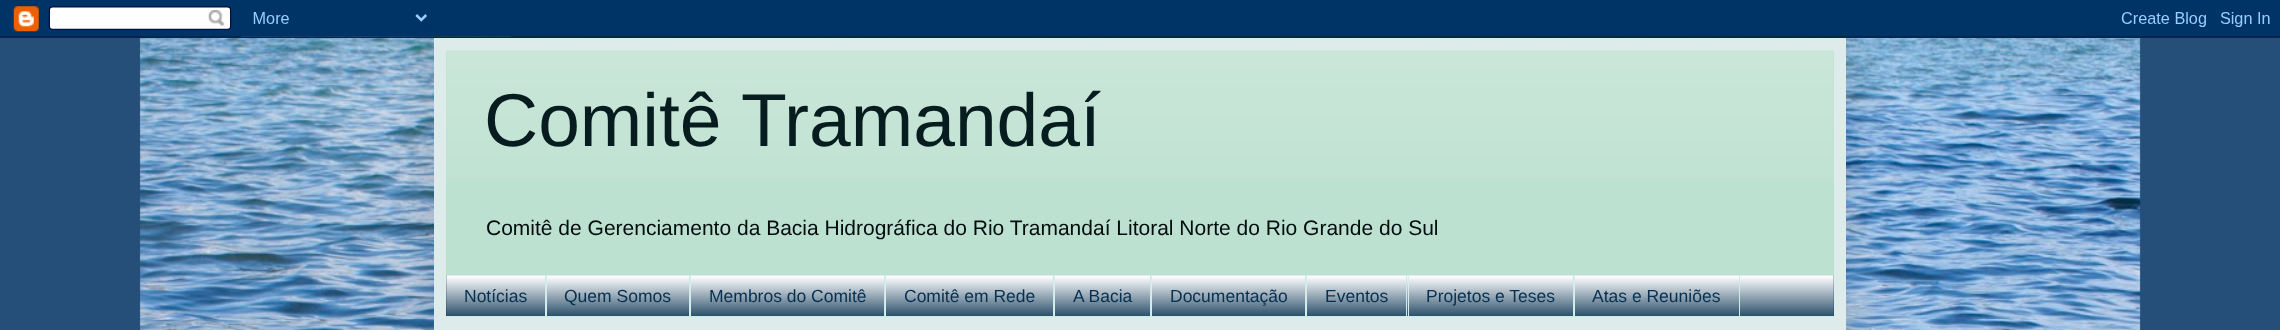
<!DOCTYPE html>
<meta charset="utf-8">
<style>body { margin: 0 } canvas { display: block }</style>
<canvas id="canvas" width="2280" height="330"></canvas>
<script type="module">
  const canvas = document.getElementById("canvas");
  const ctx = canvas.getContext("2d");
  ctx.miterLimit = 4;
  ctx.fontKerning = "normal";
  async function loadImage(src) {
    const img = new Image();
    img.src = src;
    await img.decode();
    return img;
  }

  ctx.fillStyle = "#254e79";
  ctx.fillRect(0, 0, 2280, 330);
  ctx.drawImage(await loadImage("img1.png"), 139, 36, 2002, 294);
  ctx.fillStyle = "rgba(0, 0, 0, 0.15)";
  ctx.filter = "blur(25px)";
  ctx.beginPath();
  ctx.rect(434, 38, 1412, 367);
  ctx.fill();
  ctx.filter = "none";
  ctx.drawImage(await loadImage("img2.png"), 0, 0, 2280, 38);
  ctx.fillStyle = "#deebeb";
  ctx.fillRect(434, 38, 1412, 292);
  ctx.fillStyle = "#bde1d0";
  ctx.fillRect(446, 50, 1388, 225);
  ctx.drawImage(await loadImage("img3.png"), 446, 50, 1388, 130);
  ctx.font = "75px Liberation Sans";
  ctx.fillStyle = "#061c1f";
  ctx.fillText("Comitê", 484, 146);
  ctx.fillText("Tramandaí", 741, 146);
  ctx.font = "21px Liberation Sans";
  ctx.fillStyle = "#000c0e";
  ctx.fillText("Comitê de Gerenciamento da Bacia Hidrográfica do Rio Tramandaí Litoral Norte do Rio Grande do Sul", 486, 235);
  ctx.fillStyle = "#043050";
  ctx.fillRect(446, 275, 1388, 41);
  ctx.drawImage(await loadImage("img4.png"), 446, 275, 1388, 41);
  ctx.fillStyle = "#c8ebeb";
  ctx.fillRect(446, 316, 1388, 1);
  ctx.fillRect(545, 275, 1, 41);
  ctx.font = "17.5px Liberation Sans";
  ctx.fillStyle = "#072f50";
  ctx.fillText("Notícias", 464, 302);
  ctx.fillStyle = "#c8ebeb";
  ctx.fillRect(689, 275, 1, 41);
  ctx.fillStyle = "#deebeb";
  ctx.fillRect(546, 275, 1, 41);
  ctx.fillStyle = "#072f50";
  ctx.fillText("Quem Somos", 564, 302);
  ctx.fillStyle = "#c8ebeb";
  ctx.fillRect(884, 275, 1, 41);
  ctx.fillStyle = "#deebeb";
  ctx.fillRect(690, 275, 1, 41);
  ctx.fillStyle = "#072f50";
  ctx.fillText("Membros do Comitê", 709, 302);
  ctx.fillStyle = "#c8ebeb";
  ctx.fillRect(1053, 275, 1, 41);
  ctx.fillStyle = "#deebeb";
  ctx.fillRect(885, 275, 1, 41);
  ctx.fillStyle = "#072f50";
  ctx.fillText("Comitê em Rede", 904, 302);
  ctx.fillStyle = "#c8ebeb";
  ctx.fillRect(1150, 275, 1, 41);
  ctx.fillStyle = "#deebeb";
  ctx.fillRect(1054, 275, 1, 41);
  ctx.fillStyle = "#072f50";
  ctx.fillText("A Bacia", 1073, 302);
  ctx.fillStyle = "#c8ebeb";
  ctx.fillRect(1305, 275, 1, 41);
  ctx.fillStyle = "#deebeb";
  ctx.fillRect(1151, 275, 1, 41);
  ctx.fillStyle = "#072f50";
  ctx.fillText("Documentação", 1170, 302);
  ctx.fillStyle = "#c8ebeb";
  ctx.fillRect(1406, 275, 1, 41);
  ctx.fillStyle = "#deebeb";
  ctx.fillRect(1306, 275, 1, 41);
  ctx.fillStyle = "#072f50";
  ctx.fillText("Eventos", 1325, 302);
  ctx.fillStyle = "#c8ebeb";
  ctx.fillRect(1573, 275, 1, 41);
  ctx.fillStyle = "#deebeb";
  ctx.fillRect(1408, 275, 1, 41);
  ctx.fillStyle = "#072f50";
  ctx.fillText("Projetos e Teses", 1426, 302);
  ctx.fillStyle = "#c8ebeb";
  ctx.fillRect(1739, 275, 1, 41);
  ctx.fillStyle = "#deebeb";
  ctx.fillRect(1574, 275, 1, 41);
  ctx.fillStyle = "#072f50";
  ctx.fillText("Atas e Reuniões", 1592, 302);
</script>
